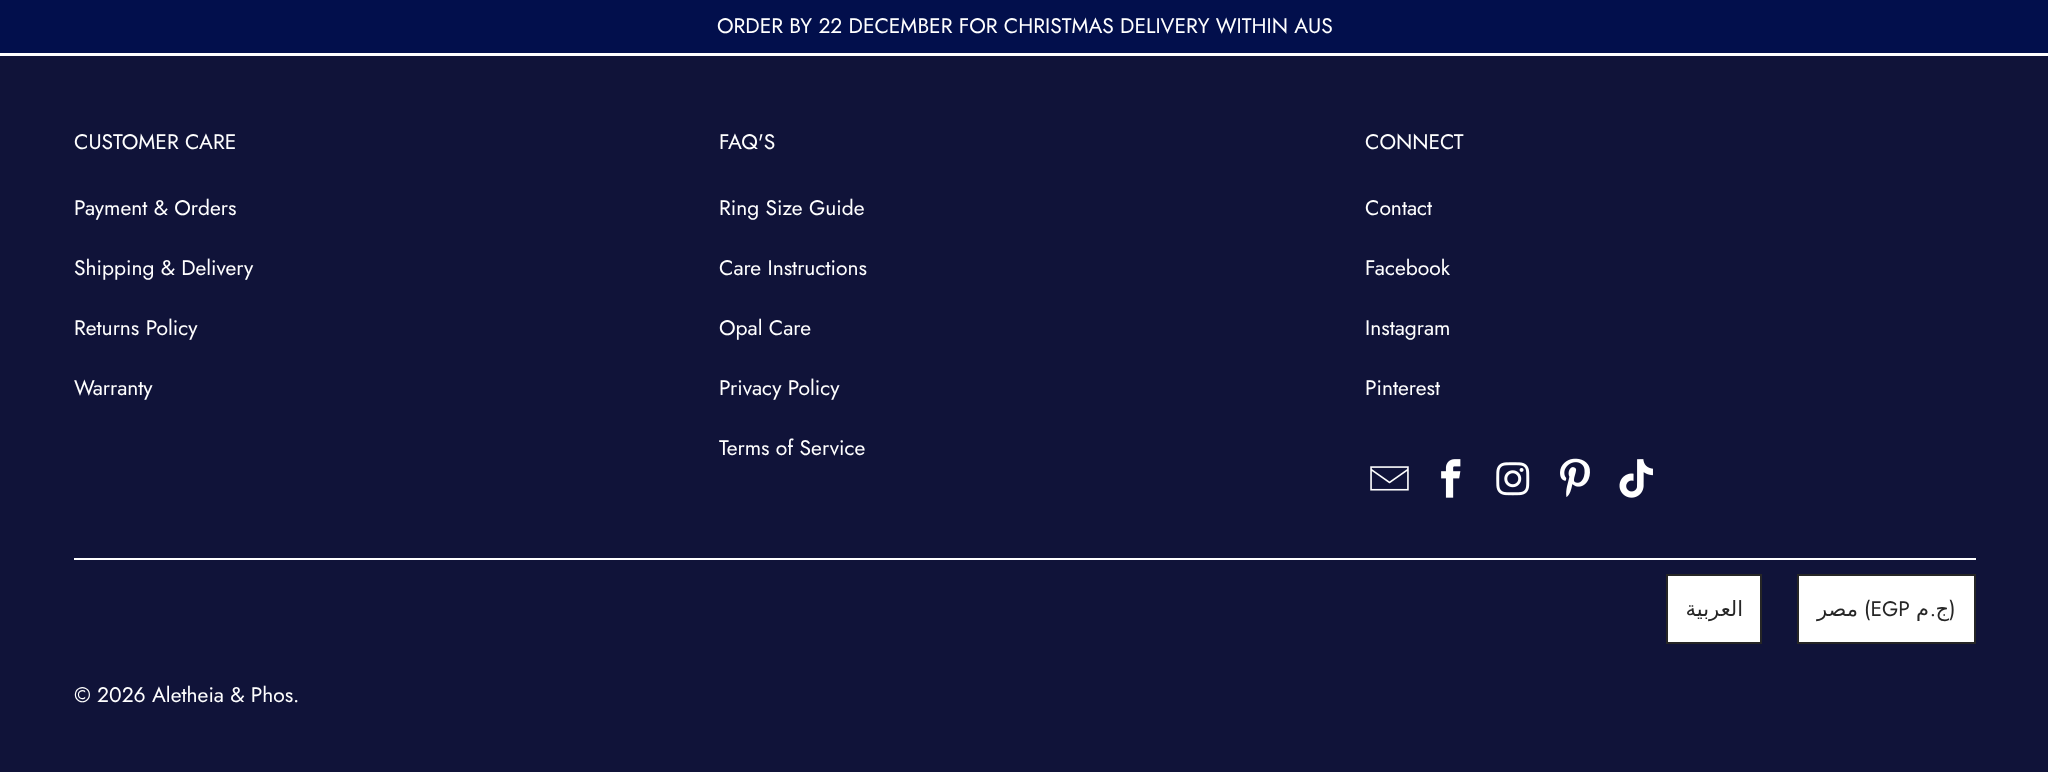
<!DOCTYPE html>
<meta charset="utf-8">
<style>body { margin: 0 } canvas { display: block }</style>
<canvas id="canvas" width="2048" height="772"></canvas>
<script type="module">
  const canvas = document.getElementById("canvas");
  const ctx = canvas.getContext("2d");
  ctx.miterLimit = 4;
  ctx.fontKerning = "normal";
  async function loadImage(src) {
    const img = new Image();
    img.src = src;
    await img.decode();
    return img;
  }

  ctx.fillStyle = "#ffffff";
  ctx.fillRect(0, 0, 2048, 772);
  ctx.fillStyle = "#020f4c";
  ctx.fillRect(0, 0, 2048, 53);
  ctx.font = "21px Jost";
  ctx.fillStyle = "#ffffff";
  ctx.fillText("ORDER BY 22 DECEMBER FOR CHRISTMAS DELIVERY WITHIN AUS", 717, 33);
  ctx.fillStyle = "#101339";
  ctx.fillRect(0, 56, 2048, 716);
  ctx.fillStyle = "#ffffff";
  ctx.fillText("CUSTOMER CARE", 74, 149);
  ctx.fillText("Payment & Orders", 74, 215);
  ctx.fillText("Shipping & Delivery", 74, 275);
  ctx.fillText("Returns Policy", 74, 335);
  ctx.fillText("Warranty", 74, 395);
  ctx.fillText("FAQ'S", 719, 149);
  ctx.fillText("Ring Size Guide", 719, 215);
  ctx.fillText("Care Instructions", 719, 275);
  ctx.fillText("Opal Care", 719, 335);
  ctx.fillText("Privacy Policy", 719, 395);
  ctx.fillText("Terms of Service", 719, 455);
  ctx.fillText("CONNECT", 1365, 149);
  ctx.fillText("Contact", 1365, 215);
  ctx.fillText("Facebook", 1365, 275);
  ctx.fillText("Instagram", 1365, 335);
  ctx.fillText("Pinterest", 1365, 395);
  ctx.drawImage(await loadImage("img1.png"), 1370, 466, 39, 25);
  ctx.drawImage(await loadImage("img2.png"), 1441, 459, 20, 39);
  ctx.drawImage(await loadImage("img3.png"), 1496, 462, 34, 34);
  ctx.drawImage(await loadImage("img4.png"), 1560, 458, 30, 39);
  ctx.drawImage(await loadImage("img5.png"), 1619, 459, 34, 39);
  ctx.fillRect(74, 558, 1902, 2);
  ctx.beginPath();
  ctx.rect(1667, 575, 94, 68);
  ctx.fill();
  ctx.strokeStyle = "#262626";
  ctx.lineWidth = 2;
  ctx.stroke();
  ctx.direction = "rtl";
  ctx.font = "21px DejaVu Sans";
  ctx.fillStyle = "#262626";
  ctx.fillText("العربية", 1743, 616);
  ctx.fillStyle = "#ffffff";
  ctx.beginPath();
  ctx.rect(1798, 575, 177, 68);
  ctx.fill();
  ctx.stroke();
  ctx.fillStyle = "#262626";
  ctx.fillText("مصر", 1858, 616);
  ctx.direction = "ltr";
  ctx.font = "21px Jost";
  ctx.fillText("(EGP", 1864, 616);
  ctx.direction = "rtl";
  ctx.font = "21px DejaVu Sans";
  ctx.fillText("م", 1929, 616);
  ctx.font = "21px Jost";
  ctx.fillText(".", 1936, 616);
  ctx.font = "21px DejaVu Sans";
  ctx.fillText("ج", 1949, 616);
  ctx.direction = "ltr";
  ctx.font = "21px Jost";
  ctx.fillText(")", 1949, 616);
  ctx.fillStyle = "#ffffff";
  ctx.fillText("© 2026 Aletheia & Phos", 74, 702);
  ctx.fillText(".", 293, 702);
</script>
